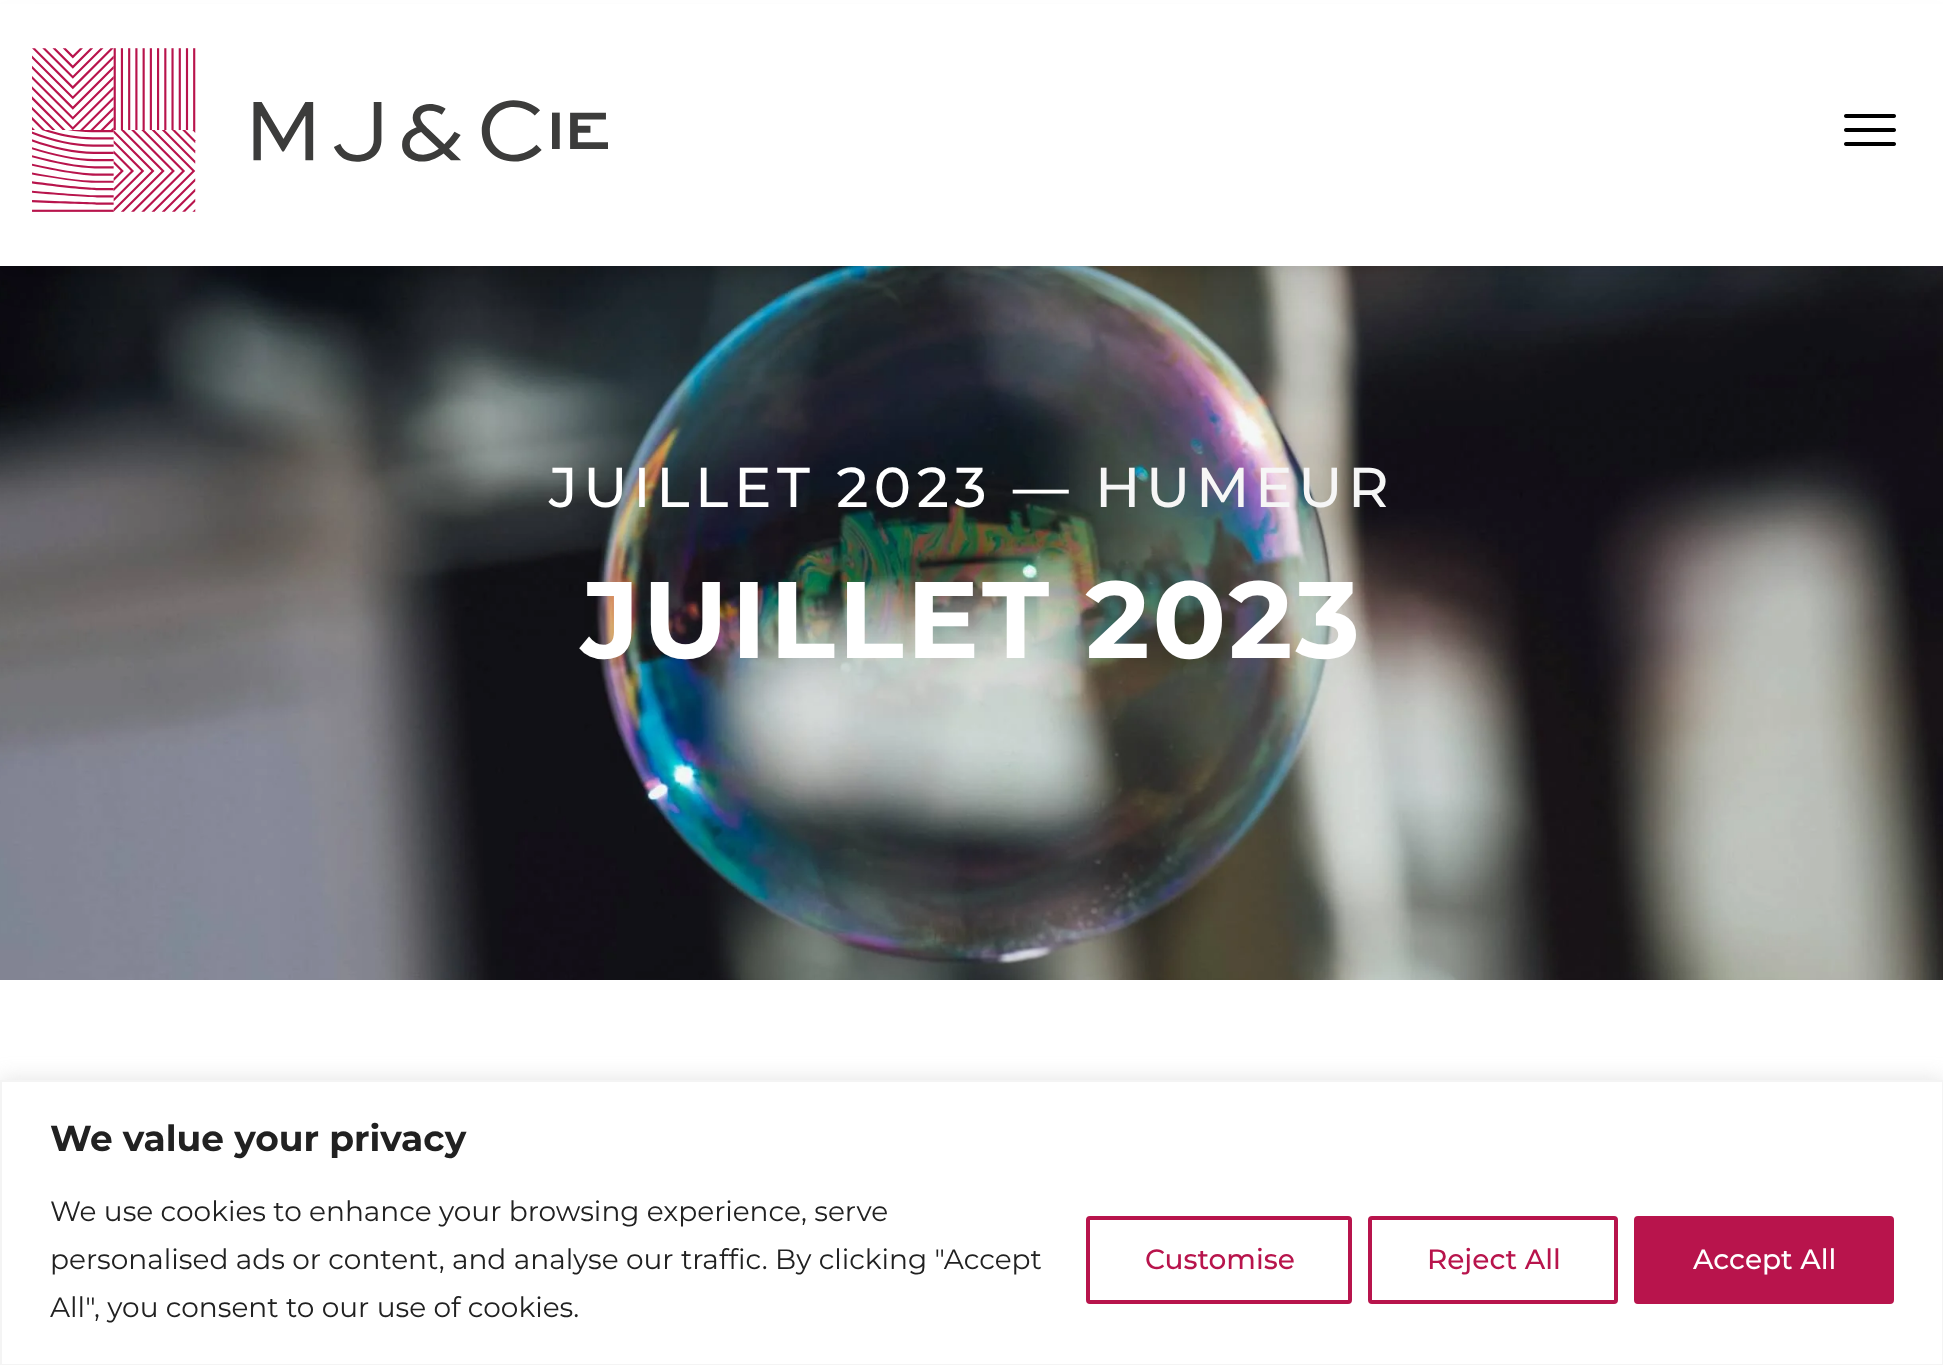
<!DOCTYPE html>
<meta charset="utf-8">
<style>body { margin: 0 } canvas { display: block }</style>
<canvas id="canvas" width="1943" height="1365"></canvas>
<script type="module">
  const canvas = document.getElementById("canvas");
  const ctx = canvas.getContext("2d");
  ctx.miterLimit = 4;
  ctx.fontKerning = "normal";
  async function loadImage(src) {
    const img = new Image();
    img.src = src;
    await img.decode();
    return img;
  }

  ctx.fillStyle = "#ffffff";
  ctx.fillRect(0, 0, 1943, 1365);
  ctx.drawImage(await loadImage("img3.png"), 0, 266, 1943, 714);
  ctx.fillStyle = "rgba(0, 0, 0, 0.1)";
  ctx.filter = "blur(6px)";
  ctx.beginPath();
  ctx.rect(8, 16, 1928, 250);
  ctx.fill();
  ctx.filter = "none";
  ctx.filter = "blur(15px)";
  ctx.beginPath();
  ctx.rect(6, 26, 1932, 254);
  ctx.fill();
  ctx.filter = "none";
  ctx.fillStyle = "#ffffff";
  ctx.fillRect(0, 4, 1943, 262);
  ctx.drawImage(await loadImage("img1.png"), 32, 48, 576, 164);
  ctx.drawImage(await loadImage("img2.png"), 1844, 114, 52, 32);
  ctx.letterSpacing = "5.6px";
  ctx.font = "500 56px Montserrat";
  ctx.fillText("JUILLET 2023 —", 549, 507);
  ctx.fillStyle = "#f6f6f6";
  ctx.fillText("HUMEUR", 1095, 507);
  ctx.letterSpacing = "2.75px";
  ctx.font = "bold 108.75px Montserrat";
  ctx.fillStyle = "#ffffff";
  ctx.fillText("JUILLET 2023", 581, 658);
  ctx.fillStyle = "rgba(172, 171, 171, 0.3)";
  ctx.filter = "blur(10px)";
  ctx.beginPath();
  ctx.rect(0, 1078, 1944, 286);
  ctx.fill();
  ctx.filter = "none";
  ctx.fillStyle = "#ffffff";
  ctx.beginPath();
  ctx.rect(1, 1081, 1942, 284);
  ctx.fill();
  ctx.strokeStyle = "#f4f4f4";
  ctx.lineWidth = 2;
  ctx.stroke();
  ctx.letterSpacing = "0px";
  ctx.font = "bold 36px Montserrat";
  ctx.fillStyle = "#212121";
  ctx.fillText("We value your privacy", 50, 1151);
  ctx.font = "28px Montserrat";
  ctx.fillText("We use cookies to enhance your browsing experience, serve", 50, 1221);
  ctx.fillText("personalised ads or content, and analyse our traffic. By clicking \"Accept", 50, 1269);
  ctx.fillText("All\", you consent to our use of cookies.", 50, 1317);
  ctx.beginPath();
  ctx.roundRect(1088, 1218, 262, 84, 2);
  ctx.strokeStyle = "#b8144c";
  ctx.lineWidth = 4;
  ctx.stroke();
  ctx.font = "500 28px Montserrat";
  ctx.fillStyle = "#b8144c";
  ctx.fillText("Customise", 1145, 1269);
  ctx.beginPath();
  ctx.roundRect(1370, 1218, 246, 84, 2);
  ctx.stroke();
  ctx.fillText("Reject All", 1427, 1269);
  ctx.beginPath();
  ctx.roundRect(1636, 1218, 256, 84, 2);
  ctx.fill();
  ctx.stroke();
  ctx.fillStyle = "#ffffff";
  ctx.fillText("Accept All", 1693, 1269);
</script>
